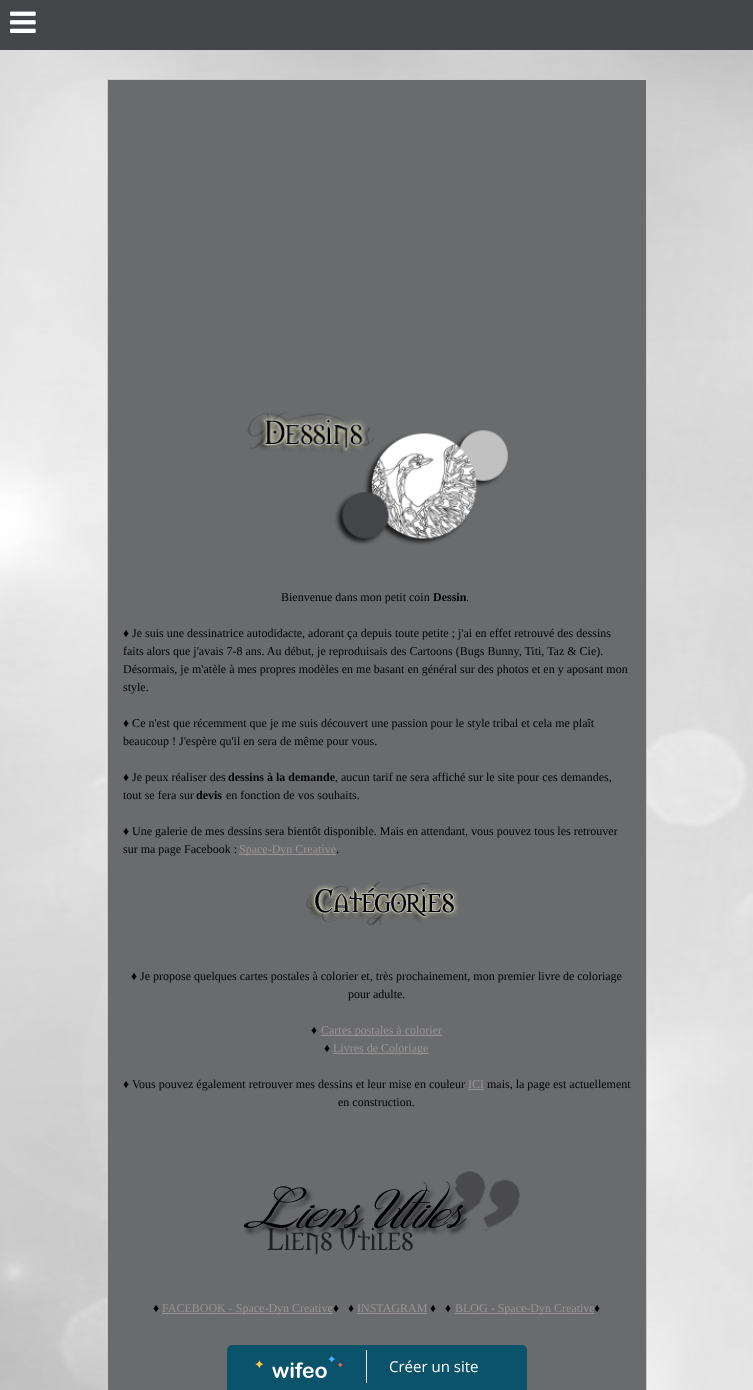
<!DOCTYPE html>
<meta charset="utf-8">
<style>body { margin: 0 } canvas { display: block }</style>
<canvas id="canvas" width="753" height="1390"></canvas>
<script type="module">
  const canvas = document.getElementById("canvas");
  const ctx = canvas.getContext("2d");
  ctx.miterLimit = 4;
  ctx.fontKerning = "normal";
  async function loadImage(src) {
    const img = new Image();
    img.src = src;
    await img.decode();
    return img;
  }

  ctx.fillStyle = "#ffffff";
  ctx.fillRect(0, 0, 753, 1390);
  ctx.drawImage(await loadImage("img1.png"), 0, 50, 753, 1340);
  ctx.fillStyle = "#6a6b6d";
  ctx.beginPath();
  ctx.rect(107.5, 79.5, 539, 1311);
  ctx.fill();
  ctx.strokeStyle = "#cccccc";
  ctx.stroke();
  ctx.fillStyle = "#434549";
  ctx.fillRect(0, 0, 753, 50);
  ctx.drawImage(await loadImage("img2.png"), 10, 11, 26, 22);
  ctx.drawImage(await loadImage("img3.png"), 247, 412, 261, 133);
  ctx.font = "12px Liberation Serif";
  ctx.fillStyle = "#000000";
  ctx.fillText("Bienvenue dans mon petit coin", 281, 601);
  ctx.font = "bold 12px Liberation Serif";
  ctx.fillText("Dessin", 433, 601);
  ctx.font = "12px Liberation Serif";
  ctx.fillText(".", 466, 601);
  ctx.fillText("♦ Je suis une dessinatrice autodidacte, adorant ça depuis toute petite ; j'ai en effet retrouvé des dessins", 123, 637);
  ctx.fillText("faits alors que j'avais 7-8 ans. Au début, je reproduisais des Cartoons (Bugs Bunny, Titi, Taz & Cie).", 123, 655);
  ctx.fillText("Désormais, je m'atèle à mes propres modèles en me basant en général sur des photos et en y aposant mon", 123, 673);
  ctx.fillText("style.", 123, 691);
  ctx.fillText("♦ Ce n'est que récemment que je me suis découvert une passion pour le style tribal et cela me plaît", 123, 727);
  ctx.fillText("beaucoup ! J'espère qu'il en sera de même pour vous.", 123, 745);
  ctx.fillText("♦ Je peux réaliser des", 123, 781);
  ctx.font = "bold 12px Liberation Serif";
  ctx.fillText("dessins à la demande", 228, 781);
  ctx.font = "12px Liberation Serif";
  ctx.fillText(", aucun tarif ne sera affiché sur le site pour ces demandes,", 335, 781);
  ctx.fillText("tout se fera sur", 123, 799);
  ctx.font = "bold 12px Liberation Serif";
  ctx.fillText("devis", 196, 799);
  ctx.font = "12px Liberation Serif";
  ctx.fillText("en fonction de vos souhaits.", 226, 799);
  ctx.fillText("♦ Une galerie de mes dessins sera bientôt disponible. Mais en attendant, vous pouvez tous les retrouver", 123, 835);
  ctx.fillText("sur ma page Facebook :", 123, 853);
  ctx.fillStyle = "#999393";
  ctx.fillRect(239, 854, 97, 1);
  ctx.fillText("Space-Dyn Creative", 239, 853);
  ctx.fillStyle = "#000000";
  ctx.fillText(".", 336, 853);
  ctx.drawImage(await loadImage("img4.png"), 306, 881, 153, 44);
  ctx.fillText("♦ Je propose quelques cartes postales à colorier et, très prochainement, mon premier livre de coloriage", 131, 980);
  ctx.fillText("pour adulte.", 348, 998);
  ctx.fillText("♦", 311, 1034);
  ctx.fillStyle = "#999393";
  ctx.fillRect(321, 1035, 121, 1);
  ctx.fillText("Cartes postales à colorier", 321, 1034);
  ctx.fillStyle = "#000000";
  ctx.fillText("♦", 324, 1052);
  ctx.fillStyle = "#999393";
  ctx.fillRect(333, 1053, 96, 1);
  ctx.fillText("Livres de Coloriage", 333, 1052);
  ctx.fillStyle = "#000000";
  ctx.fillText("♦ Vous pouvez également retrouver mes dessins et leur mise en couleur", 123, 1088);
  ctx.fillStyle = "#999393";
  ctx.fillText("ICI", 468, 1088);
  ctx.fillRect(468, 1089, 16, 1);
  ctx.fillStyle = "#000000";
  ctx.fillText("mais, la page est actuellement", 487, 1088);
  ctx.fillText("en construction.", 338, 1106);
  ctx.drawImage(await loadImage("img5.png"), 243, 1171, 277, 84);
  ctx.fillText("♦", 153, 1312);
  ctx.fillStyle = "#999393";
  ctx.fillRect(162, 1313, 171, 1);
  ctx.fillText("FACEBOOK - Space-Dyn Creative", 162, 1312);
  ctx.fillStyle = "#000000";
  ctx.fillText("♦   ♦", 333, 1312);
  ctx.fillStyle = "#999393";
  ctx.fillText("INSTAGRAM", 357, 1312);
  ctx.fillRect(357, 1313, 70, 1);
  ctx.fillStyle = "#000000";
  ctx.fillText("♦   ♦", 430, 1312);
  ctx.fillStyle = "#999393";
  ctx.fillRect(455, 1313, 139, 1);
  ctx.fillText("BLOG - Space-Dyn Creative", 455, 1312);
  ctx.fillStyle = "#000000";
  ctx.fillText("♦", 594, 1312);
  ctx.fillStyle = "#0b536b";
  ctx.beginPath();
  ctx.roundRect(227, 1345, 300, 45, [5, 5, 0, 0]);
  ctx.fill();
  ctx.fillStyle = "#e7e7e7";
  ctx.fillRect(366, 1350, 1, 33);
  ctx.drawImage(await loadImage("img6.png"), 255, 1356, 88, 22);
  ctx.font = "15px Open Sans";
  ctx.fillStyle = "#ffffff";
  ctx.fillText("Créer un site", 389, 1372);
</script>
